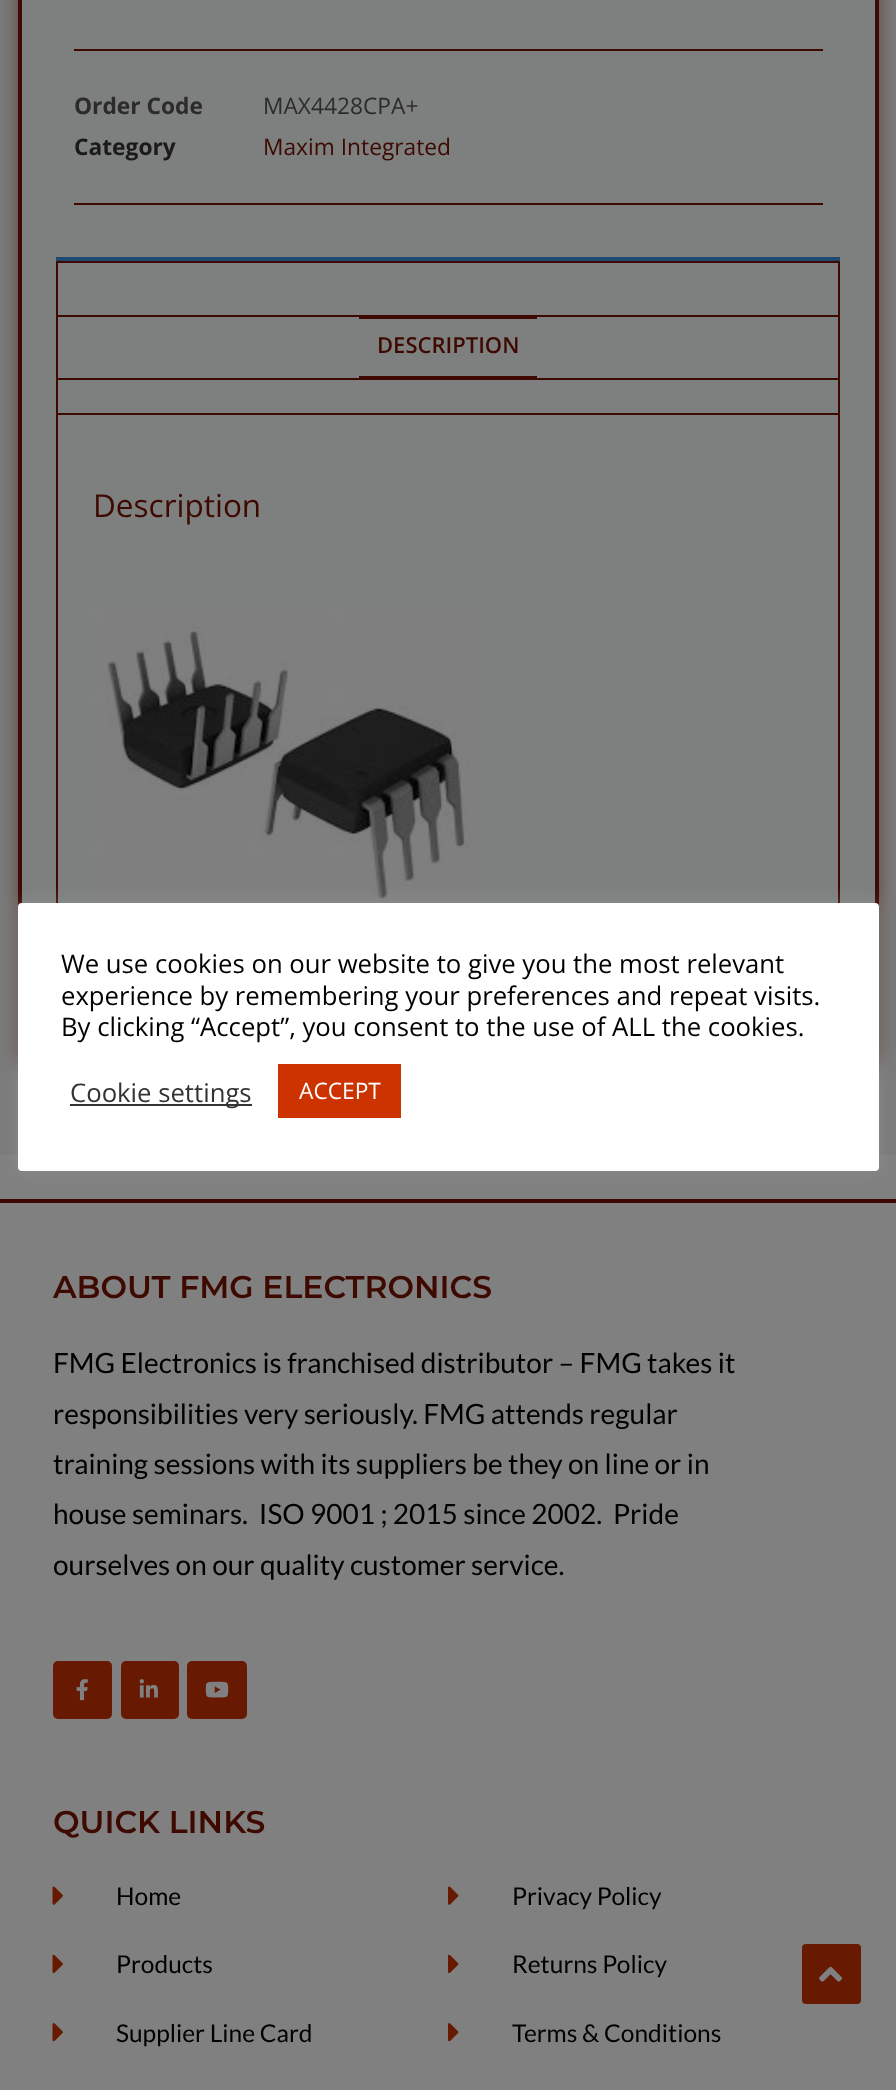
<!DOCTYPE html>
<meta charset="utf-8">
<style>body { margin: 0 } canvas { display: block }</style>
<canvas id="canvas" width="896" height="2090"></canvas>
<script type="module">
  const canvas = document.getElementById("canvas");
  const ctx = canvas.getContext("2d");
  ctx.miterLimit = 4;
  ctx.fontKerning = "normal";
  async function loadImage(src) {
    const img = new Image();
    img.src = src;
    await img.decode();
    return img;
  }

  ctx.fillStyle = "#808080";
  ctx.fillRect(0, 0, 896, 2090);
  ctx.fillStyle = "#7b7b7b";
  ctx.fillRect(0, 0, 896, 1155);
  ctx.fillStyle = "rgba(62, 9, 0, 0.51)";
  ctx.filter = "blur(9px)";
  ctx.beginPath();
  ctx.roundRect(18, -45, 861, 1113, 18);
  ctx.fill();
  ctx.filter = "none";
  ctx.fillStyle = "#7d807f";
  ctx.fillRect(22, 0, 853, 903);
  ctx.strokeStyle = "#3e0900";
  ctx.lineWidth = 4;
  ctx.strokeRect(20, -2, 857, 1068);
  ctx.fillStyle = "#1e4973";
  ctx.fillRect(56, 257, 784, 4);
  ctx.fillStyle = "#3e0900";
  ctx.fillRect(74, 49, 749, 2);
  ctx.fillRect(74, 203, 749, 2);
  ctx.font = "bold 22.75px Open Sans";
  ctx.fillStyle = "#2b2b2b";
  ctx.fillText("Order Code", 74, 114);
  ctx.font = "22.75px Open Sans";
  ctx.fillText("MAX4428CPA+", 263, 114);
  ctx.font = "bold 22.75px Open Sans";
  ctx.fillStyle = "#1a1a1a";
  ctx.fillText("Category", 74, 155);
  ctx.font = "22.75px Open Sans";
  ctx.fillStyle = "#3e0900";
  ctx.fillText("Maxim Integrated", 263, 155);
  ctx.lineWidth = 2;
  ctx.strokeRect(57, 262, 782, 766);
  ctx.fillRect(58, 315, 780, 2);
  ctx.fillRect(58, 378, 780, 2);
  ctx.fillRect(359, 317, 178, 2);
  ctx.fillRect(359, 376, 178, 2);
  ctx.font = "600 22px Open Sans";
  ctx.fillText("DESCRIPTION", 377, 353);
  ctx.fillRect(58, 413, 780, 2);
  ctx.font = "31.5px Open Sans";
  ctx.fillText("Description", 93, 517);
  ctx.drawImage(await loadImage("img1.png"), 93, 607, 378, 296);
  ctx.fillRect(0, 1199, 896, 4);
  ctx.font = "600 31.5px Montserrat";
  ctx.fillText("ABOUT FMG ELECTRONICS", 53, 1298);
  ctx.font = "28px Lato";
  ctx.fillStyle = "#000000";
  ctx.fillText("FMG Electronics is franchised distributor – FMG takes it", 53, 1373);
  ctx.fillText("responsibilities very seriously. FMG attends regular", 53, 1424);
  ctx.fillText("training sessions with its suppliers be they on line or in", 53, 1474);
  ctx.fillText("house seminars.  ISO 9001 ; 2015 since 2002.  Pride", 53, 1524);
  ctx.fillText("ourselves on our quality customer service.", 53, 1575);
  ctx.fillStyle = "#671a01";
  ctx.beginPath();
  ctx.roundRect(53, 1661, 59, 58, 5);
  ctx.fill();
  ctx.drawImage(await loadImage("img2.png"), 76, 1679, 12, 22);
  ctx.beginPath();
  ctx.roundRect(121, 1661, 58, 58, 5);
  ctx.fill();
  ctx.drawImage(await loadImage("img3.png"), 139, 1679, 19, 19);
  ctx.beginPath();
  ctx.roundRect(187, 1661, 60, 58, 5);
  ctx.fill();
  ctx.drawImage(await loadImage("img4.png"), 205, 1681, 24, 17);
  ctx.font = "600 31.5px Montserrat";
  ctx.fillStyle = "#3e0900";
  ctx.fillText("QUICK LINKS", 53, 1833);
  ctx.drawImage(await loadImage("img5.png"), 52, 1886, 11, 19);
  ctx.font = "24.5px Lato";
  ctx.fillStyle = "#000000";
  ctx.fillText("Home", 116, 1905);
  ctx.drawImage(await loadImage("img6.png"), 52, 1954, 11, 19);
  ctx.fillText("Products", 116, 1973);
  ctx.drawImage(await loadImage("img7.png"), 52, 2023, 11, 19);
  ctx.fillText("Supplier Line Card", 116, 2042);
  ctx.drawImage(await loadImage("img8.png"), 448, 1886, 11, 19);
  ctx.fillText("Privacy Policy", 512, 1905);
  ctx.drawImage(await loadImage("img9.png"), 448, 1954, 11, 20);
  ctx.fillText("Returns Policy", 512, 1973);
  ctx.drawImage(await loadImage("img10.png"), 448, 2023, 11, 19);
  ctx.fillText("Terms & Conditions", 512, 2042);
  ctx.fillStyle = "rgba(172, 171, 171, 0.3)";
  ctx.filter = "blur(9px)";
  ctx.beginPath();
  ctx.roundRect(18, 901, 861, 268, 4);
  ctx.fill();
  ctx.filter = "none";
  ctx.fillStyle = "#ffffff";
  ctx.beginPath();
  ctx.roundRect(18, 903, 861, 268, 4);
  ctx.fill();
  ctx.font = "25.7px Open Sans";
  ctx.fillStyle = "#000000";
  ctx.fillText("We use cookies on our website to give you the most relevant", 61, 973);
  ctx.fillText("experience by remembering your preferences and repeat visits.", 61, 1005);
  ctx.fillText("By clicking “Accept”, you consent to the use of ALL the cookies.", 61, 1036);
  ctx.fillStyle = "#333333";
  ctx.fillRect(70, 1104, 182, 2);
  ctx.fillText("Cookie settings", 70, 1102);
  ctx.fillStyle = "#cd3301";
  ctx.fillRect(278, 1064, 123, 54);
  ctx.font = "22.75px Open Sans";
  ctx.fillStyle = "#ffffff";
  ctx.fillText("ACCEPT", 299, 1099);
  ctx.fillStyle = "#671a01";
  ctx.beginPath();
  ctx.roundRect(802, 1944, 59, 60, 4);
  ctx.fill();
  ctx.drawImage(await loadImage("img11.png"), 819, 1966, 23, 16);
</script>
